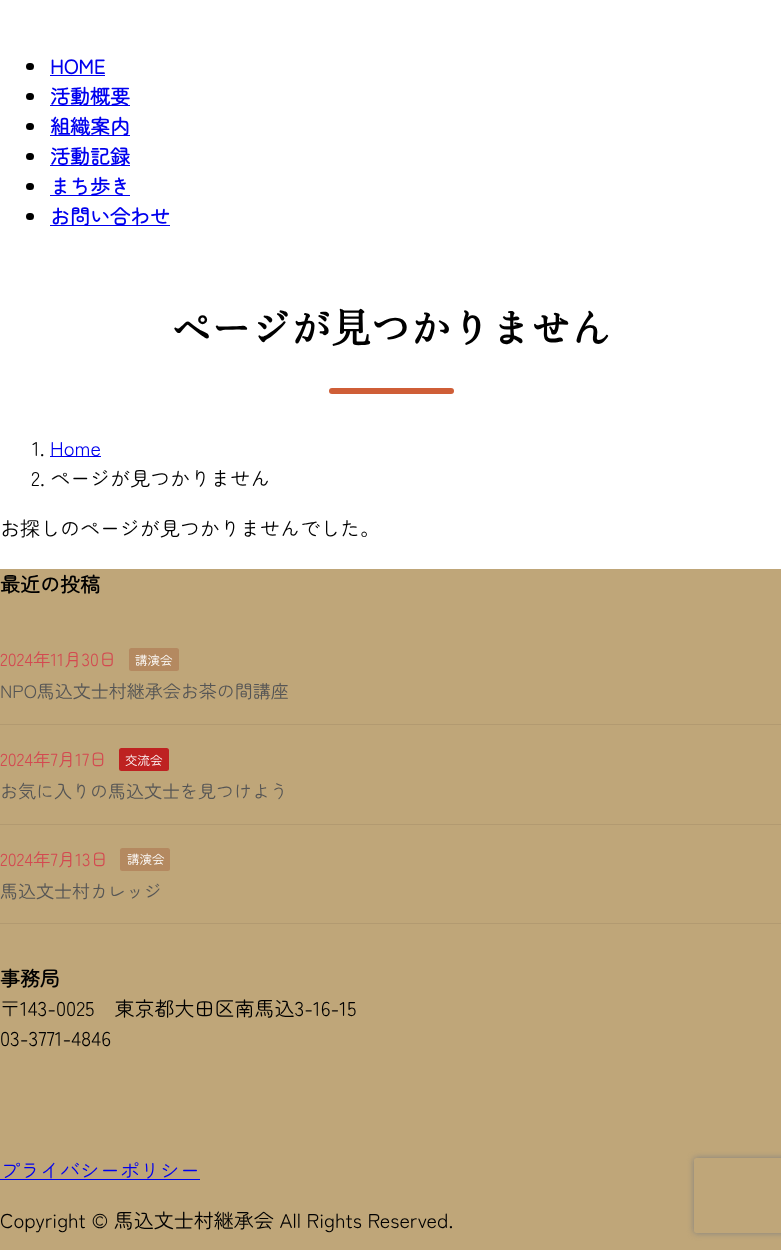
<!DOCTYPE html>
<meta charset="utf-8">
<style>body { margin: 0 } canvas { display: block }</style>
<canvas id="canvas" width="781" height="1250"></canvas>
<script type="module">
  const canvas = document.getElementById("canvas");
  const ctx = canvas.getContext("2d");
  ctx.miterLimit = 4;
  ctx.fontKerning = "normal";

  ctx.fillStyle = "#ffffff";
  ctx.fillRect(0, 0, 781, 1250);
  ctx.fillStyle = "#000000";
  ctx.beginPath();
  ctx.roundRect(26, 63, 8, 7, 3.5);
  ctx.fill();
  ctx.font = "bold 20px Zen Maru Gothic";
  ctx.fillStyle = "#0000ee";
  ctx.fillText("HOME", 50, 74);
  ctx.fillRect(50, 75, 55, 1);
  ctx.fillStyle = "#000000";
  ctx.beginPath();
  ctx.roundRect(26, 93, 8, 7, 3.5);
  ctx.fill();
  ctx.fillStyle = "#0000ee";
  ctx.fillRect(50, 105, 80, 1);
  ctx.fillText("活動概要", 50, 104);
  ctx.fillStyle = "#000000";
  ctx.beginPath();
  ctx.roundRect(26, 123, 8, 7, 3.5);
  ctx.fill();
  ctx.fillStyle = "#0000ee";
  ctx.fillRect(50, 135, 80, 1);
  ctx.fillText("組織案内", 50, 134);
  ctx.fillStyle = "#000000";
  ctx.beginPath();
  ctx.roundRect(26, 153, 8, 7, 3.5);
  ctx.fill();
  ctx.fillStyle = "#0000ee";
  ctx.fillRect(50, 165, 80, 1);
  ctx.fillText("活動記録", 50, 164);
  ctx.fillStyle = "#000000";
  ctx.beginPath();
  ctx.roundRect(26, 183, 8, 7, 3.5);
  ctx.fill();
  ctx.fillStyle = "#0000ee";
  ctx.fillRect(50, 195, 80, 1);
  ctx.fillText("まち歩き", 50, 194);
  ctx.fillStyle = "#000000";
  ctx.beginPath();
  ctx.roundRect(26, 213, 8, 7, 3.5);
  ctx.fill();
  ctx.fillStyle = "#0000ee";
  ctx.fillRect(50, 225, 120, 1);
  ctx.fillText("お問い合わせ", 50, 224);
  ctx.font = "bold 40px Zen Old Mincho";
  ctx.fillStyle = "#000000";
  ctx.fillText("ページが見つかりません", 171, 343);
  ctx.fillStyle = "#cf5e37";
  ctx.beginPath();
  ctx.roundRect(329, 388, 125, 6, 3);
  ctx.fill();
  ctx.font = "20px Zen Maru Gothic";
  ctx.fillStyle = "#000000";
  ctx.fillText("1.", 32, 456);
  ctx.fillStyle = "#0000ee";
  ctx.fillRect(50, 456, 51, 1);
  ctx.fillText("Home", 50, 456);
  ctx.fillStyle = "#000000";
  ctx.fillText("2. ページが見つかりません", 31, 486);
  ctx.fillText("お探しのページが見つかりませんでした。", 0, 536);
  ctx.fillStyle = "#bfa679";
  ctx.fillRect(0, 569, 781, 681);
  ctx.font = "bold 20px Zen Maru Gothic";
  ctx.fillStyle = "#000000";
  ctx.fillText("最近の投稿", 0, 592);
  ctx.fillStyle = "#b29a71";
  ctx.fillRect(0, 724, 781, 1);
  ctx.font = "17.5px Zen Maru Gothic";
  ctx.fillStyle = "#d44950";
  ctx.fillText("2024年11月30日", 0, 666);
  ctx.fillStyle = "#b48960";
  ctx.beginPath();
  ctx.roundRect(129, 648, 50, 23, 2.5);
  ctx.fill();
  ctx.font = "12.5px Zen Maru Gothic";
  ctx.fillStyle = "#ffffff";
  ctx.fillText("講演会", 135, 665);
  ctx.font = "18px Zen Maru Gothic";
  ctx.fillStyle = "#555555";
  ctx.fillText("NPO馬込文士村継承会お茶の間講座", 0, 698);
  ctx.fillStyle = "#b29a71";
  ctx.fillRect(0, 824, 781, 1);
  ctx.font = "17.5px Zen Maru Gothic";
  ctx.fillStyle = "#d44950";
  ctx.fillText("2024年7月17日", 0, 766);
  ctx.fillStyle = "#be2221";
  ctx.beginPath();
  ctx.roundRect(119, 748, 50, 23, 2.5);
  ctx.fill();
  ctx.font = "12.5px Zen Maru Gothic";
  ctx.fillStyle = "#ffffff";
  ctx.fillText("交流会", 125, 765);
  ctx.font = "18px Zen Maru Gothic";
  ctx.fillStyle = "#555555";
  ctx.fillText("お気に入りの馬込文士を見つけよう", 0, 798);
  ctx.fillStyle = "#b29a71";
  ctx.fillRect(0, 923, 781, 1);
  ctx.font = "17.5px Zen Maru Gothic";
  ctx.fillStyle = "#d44950";
  ctx.fillText("2024年7月13日", 0, 866);
  ctx.fillStyle = "#b48960";
  ctx.beginPath();
  ctx.roundRect(120, 848, 50, 23, 2.5);
  ctx.fill();
  ctx.font = "12.5px Zen Maru Gothic";
  ctx.fillStyle = "#ffffff";
  ctx.fillText("講演会", 127, 864);
  ctx.font = "18px Zen Maru Gothic";
  ctx.fillStyle = "#555555";
  ctx.fillText("馬込文士村カレッジ", 0, 898);
  ctx.font = "bold 20px Zen Maru Gothic";
  ctx.fillStyle = "#000000";
  ctx.fillText("事務局", 0, 986);
  ctx.font = "20px Zen Maru Gothic";
  ctx.fillText("〒143-0025　東京都大田区南馬込3-16-15", 0, 1016);
  ctx.fillText("03-3771-4846", 0, 1046);
  ctx.fillStyle = "#0000ee";
  ctx.fillText("プライバシーポリシー", 0, 1178);
  ctx.fillRect(0, 1179, 200, 1);
  ctx.fillStyle = "#000000";
  ctx.fillText("Copyright © 馬込文士村継承会 All Rights Reserved.", 0, 1228);
  ctx.save();
  ctx.beginPath();
  ctx.moveTo(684, 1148);
  ctx.lineTo(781, 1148);
  ctx.lineTo(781, 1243);
  ctx.lineTo(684, 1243);
  ctx.closePath();
  ctx.moveTo(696.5, 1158);
  ctx.lineTo(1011.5, 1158);
  ctx.bezierCurveTo(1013, 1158, 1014, 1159, 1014, 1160.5);
  ctx.lineTo(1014, 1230.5);
  ctx.bezierCurveTo(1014, 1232, 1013, 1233, 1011.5, 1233);
  ctx.lineTo(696.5, 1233);
  ctx.bezierCurveTo(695, 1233, 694, 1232, 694, 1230.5);
  ctx.lineTo(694, 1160.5);
  ctx.bezierCurveTo(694, 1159, 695, 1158, 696.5, 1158);
  ctx.closePath();
  ctx.clip("evenodd");
  ctx.fillStyle = "#808080";
  ctx.filter = "blur(3px)";
  ctx.beginPath();
  ctx.roundRect(694, 1158, 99, 75, 2.5);
  ctx.fill();
  ctx.filter = "none";
  ctx.restore();
</script>
